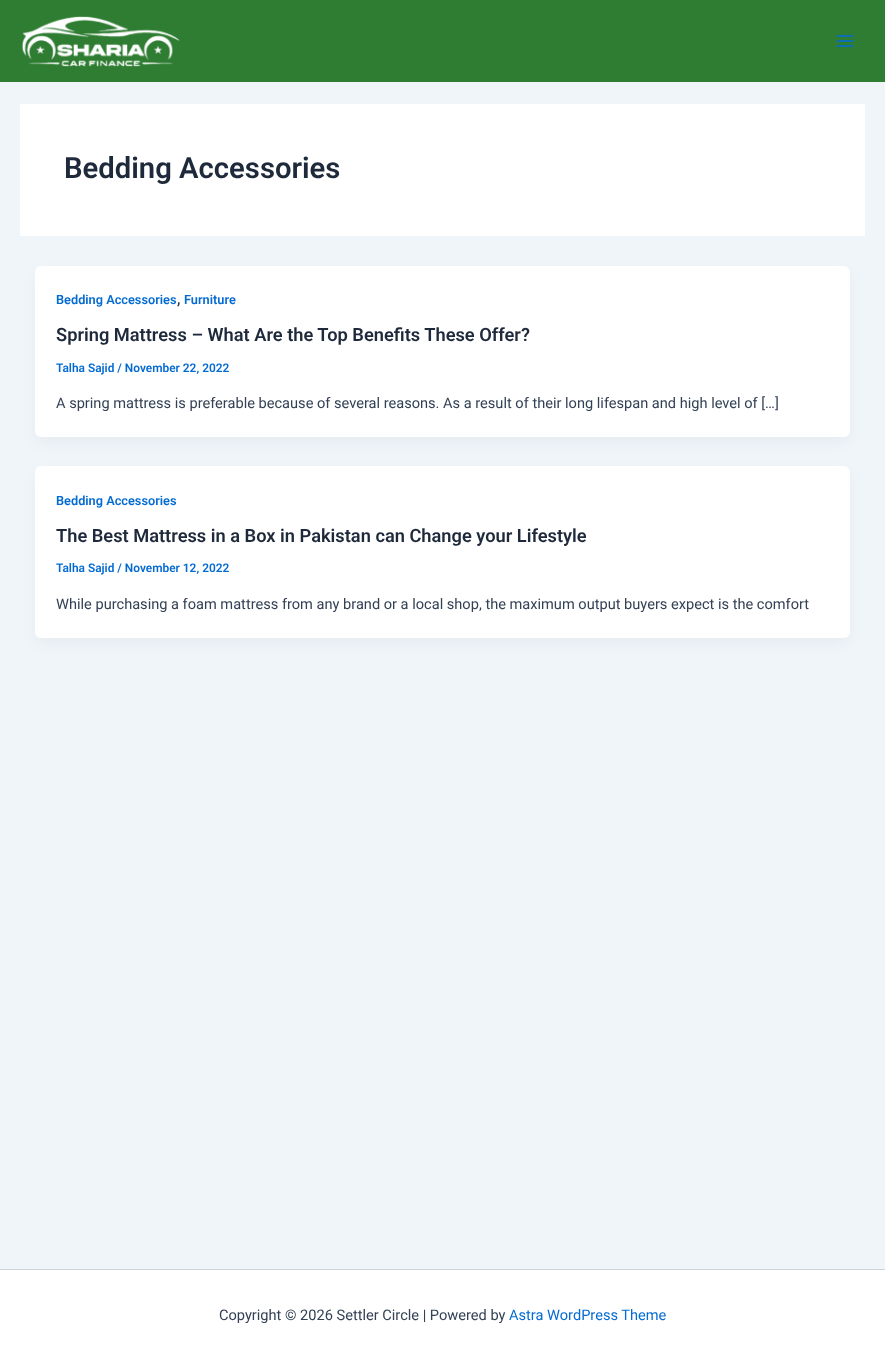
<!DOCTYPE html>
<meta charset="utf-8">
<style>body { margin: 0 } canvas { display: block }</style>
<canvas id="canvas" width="885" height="1370"></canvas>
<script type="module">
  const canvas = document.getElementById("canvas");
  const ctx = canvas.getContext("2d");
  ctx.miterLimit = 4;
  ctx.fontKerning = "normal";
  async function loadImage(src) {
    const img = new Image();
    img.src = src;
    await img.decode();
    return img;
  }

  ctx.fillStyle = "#f0f5fa";
  ctx.fillRect(0, 0, 885, 1370);
  ctx.fillStyle = "#2e7d32";
  ctx.fillRect(0, 0, 885, 82);
  ctx.drawImage(await loadImage("img1.png"), 21, 16, 159, 51);
  ctx.drawImage(await loadImage("img2.png"), 836, 35, 18, 12);
  ctx.fillStyle = "#ffffff";
  ctx.fillRect(20, 104, 845, 132);
  ctx.font = "600 29.25px Roboto";
  ctx.fillStyle = "#1e293b";
  ctx.fillText("Bedding Accessories", 64, 178);
  ctx.fillStyle = "rgba(16, 24, 40, 0.05)";
  ctx.filter = "blur(7.5px)";
  ctx.beginPath();
  ctx.roundRect(37, 274, 811, 167, 4);
  ctx.fill();
  ctx.filter = "none";
  ctx.fillStyle = "#ffffff";
  ctx.beginPath();
  ctx.roundRect(35, 266, 815, 171, 6);
  ctx.fill();
  ctx.font = "600 12.75px Roboto";
  ctx.fillStyle = "#046bd2";
  ctx.fillText("Bedding Accessories", 56, 304);
  ctx.font = "600 14.6px Roboto";
  ctx.fillStyle = "#334155";
  ctx.fillText(",", 177, 304);
  ctx.font = "600 12.75px Roboto";
  ctx.fillStyle = "#046bd2";
  ctx.fillText("Furniture", 184, 304);
  ctx.font = "600 18.25px Roboto";
  ctx.fillStyle = "#1e293b";
  ctx.fillText("Spring Mattress – What Are the Top Benefits These Offer?", 56, 341);
  ctx.font = "600 11.9px Roboto";
  ctx.fillStyle = "#046bd2";
  ctx.fillText("Talha Sajid / November 22, 2022", 56, 372);
  ctx.font = "14.6px Roboto";
  ctx.fillStyle = "#334155";
  ctx.fillText("A spring mattress is preferable because of several reasons. As a result of their long lifespan and high level of […]", 56, 408);
  ctx.fillStyle = "rgba(16, 24, 40, 0.05)";
  ctx.filter = "blur(7.5px)";
  ctx.beginPath();
  ctx.roundRect(37, 474, 811, 168, 4);
  ctx.fill();
  ctx.filter = "none";
  ctx.fillStyle = "#ffffff";
  ctx.beginPath();
  ctx.roundRect(35, 466, 815, 172, 6);
  ctx.fill();
  ctx.font = "600 12.75px Roboto";
  ctx.fillStyle = "#046bd2";
  ctx.fillText("Bedding Accessories", 56, 505);
  ctx.font = "600 18.25px Roboto";
  ctx.fillStyle = "#1e293b";
  ctx.fillText("The Best Mattress in a Box in Pakistan can Change your Lifestyle", 56, 542);
  ctx.font = "600 11.9px Roboto";
  ctx.fillStyle = "#046bd2";
  ctx.fillText("Talha Sajid / November 12, 2022", 56, 572);
  ctx.font = "14.6px Roboto";
  ctx.fillStyle = "#334155";
  ctx.fillText("While purchasing a foam mattress from any brand or a local shop, the maximum output buyers expect is the comfort", 56, 609);
  ctx.fillStyle = "#ffffff";
  ctx.fillRect(0, 1270, 885, 100);
  ctx.fillStyle = "#d1d5db";
  ctx.fillRect(0, 1269, 885, 1);
  ctx.fillStyle = "#334155";
  ctx.fillText("Copyright © 2026 Settler Circle | Powered by", 219, 1320);
  ctx.fillStyle = "#046bd2";
  ctx.fillText("Astra WordPress Theme", 509, 1320);
</script>
